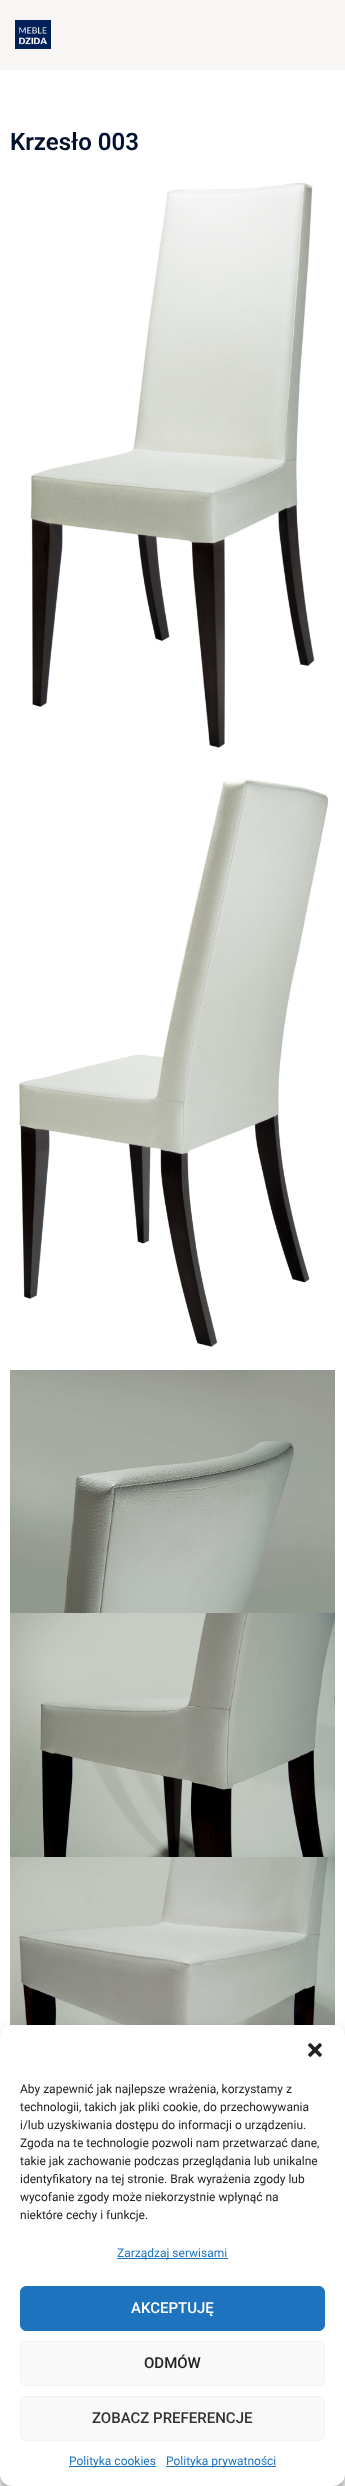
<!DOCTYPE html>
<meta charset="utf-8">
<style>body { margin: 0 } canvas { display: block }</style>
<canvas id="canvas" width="345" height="2486"></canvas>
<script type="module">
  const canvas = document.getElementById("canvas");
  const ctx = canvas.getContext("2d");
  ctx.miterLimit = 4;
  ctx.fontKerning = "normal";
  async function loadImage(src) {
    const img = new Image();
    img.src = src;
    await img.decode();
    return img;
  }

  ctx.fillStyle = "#ffffff";
  ctx.fillRect(0, 0, 345, 2486);
  ctx.fillStyle = "#f8f5f5";
  ctx.fillRect(0, 0, 345, 70);
  ctx.drawImage(await loadImage("img1.png"), 15, 20, 36, 29);
  ctx.font = "600 24px Roboto";
  ctx.fillStyle = "#00102e";
  ctx.fillText("Krzesło 003", 10, 150);
  ctx.drawImage(await loadImage("img2.png"), 30, 183, 285, 565);
  ctx.drawImage(await loadImage("img3.png"), 19, 779, 310, 568);
  ctx.drawImage(await loadImage("img4.png"), 10, 1370, 325, 243);
  ctx.drawImage(await loadImage("img5.png"), 10, 1613, 325, 244);
  ctx.drawImage(await loadImage("img6.png"), 10, 1857, 325, 169);
  ctx.drawImage(await loadImage("img7.png"), 10, 2485, 325, 1);
  ctx.fillStyle = "rgba(0, 0, 0, 0.23)";
  ctx.filter = "blur(3px)";
  ctx.beginPath();
  ctx.roundRect(0, 2031, 345, 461, 12);
  ctx.fill();
  ctx.filter = "none";
  ctx.fillStyle = "rgba(0, 0, 0, 0.19)";
  ctx.filter = "blur(10px)";
  ctx.beginPath();
  ctx.roundRect(0, 2035, 345, 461, 12);
  ctx.fill();
  ctx.filter = "none";
  ctx.fillStyle = "#808080";
  ctx.filter = "blur(2.5px)";
  ctx.beginPath();
  ctx.roundRect(275, 2412, 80, 60, 2);
  ctx.fill();
  ctx.filter = "none";
  ctx.fillStyle = "#ffffff";
  ctx.beginPath();
  ctx.roundRect(0, 2025, 345, 461, 12);
  ctx.fill();
  ctx.drawImage(await loadImage("img8.png"), 308, 2043, 14, 14);
  ctx.font = "12px Roboto";
  ctx.fillStyle = "#222222";
  ctx.fillText("Aby zapewnić jak najlepsze wrażenia, korzystamy z", 20, 2093);
  ctx.fillText("technologii, takich jak pliki cookie, do przechowywania", 20, 2111);
  ctx.fillText("i/lub uzyskiwania dostępu do informacji o urządzeniu.", 20, 2129);
  ctx.fillText("Zgoda na te technologie pozwoli nam przetwarzać dane,", 20, 2147);
  ctx.fillText("takie jak zachowanie podczas przeglądania lub unikalne", 20, 2165);
  ctx.fillText("identyfikatory na tej stronie. Brak wyrażenia zgody lub", 20, 2183);
  ctx.fillText("wycofanie zgody może niekorzystnie wpłynąć na", 20, 2201);
  ctx.fillText("niektóre cechy i funkcje.", 20, 2219);
  ctx.fillStyle = "#1e73be";
  ctx.fillRect(117, 2258, 111, 1);
  ctx.fillText("Zarządzaj serwisami", 117, 2257);
  ctx.beginPath();
  ctx.roundRect(20.5, 2286.5, 304, 44, 5.5);
  ctx.fill();
  ctx.strokeStyle = "#1e73be";
  ctx.stroke();
  ctx.font = "500 15px Roboto";
  ctx.fillStyle = "#ffffff";
  ctx.fillText("AKCEPTUJĘ", 131, 2313);
  ctx.fillStyle = "#f9f9f9";
  ctx.beginPath();
  ctx.roundRect(20.5, 2341.5, 304, 44, 5.5);
  ctx.fill();
  ctx.strokeStyle = "#f2f2f2";
  ctx.stroke();
  ctx.fillStyle = "#222222";
  ctx.fillText("ODMÓW", 144, 2368);
  ctx.fillStyle = "#f9f9f9";
  ctx.beginPath();
  ctx.roundRect(20.5, 2396.5, 304, 44, 5.5);
  ctx.fill();
  ctx.stroke();
  ctx.fillStyle = "#333333";
  ctx.fillText("ZOBACZ PREFERENCJE", 92, 2423);
  ctx.fillStyle = "#1e73be";
  ctx.fillRect(69, 2466, 87, 1);
  ctx.font = "12px Roboto";
  ctx.fillText("Polityka cookies", 69, 2465);
  ctx.fillRect(166, 2466, 110, 1);
  ctx.fillText("Polityka prywatności", 166, 2465);
</script>
